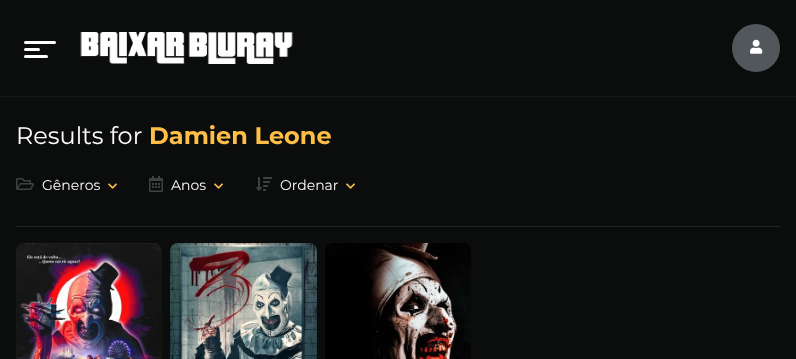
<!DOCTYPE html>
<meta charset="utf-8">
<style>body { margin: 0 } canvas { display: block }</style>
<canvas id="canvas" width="796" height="359"></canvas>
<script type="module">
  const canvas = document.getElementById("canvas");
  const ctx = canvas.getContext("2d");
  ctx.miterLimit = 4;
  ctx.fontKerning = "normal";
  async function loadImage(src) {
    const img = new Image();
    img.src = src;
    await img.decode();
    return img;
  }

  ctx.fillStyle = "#0b0c0c";
  ctx.fillRect(0, 0, 796, 359);
  ctx.fillStyle = "#171818";
  ctx.fillRect(0, 96, 796, 1);
  ctx.fillStyle = "#ffffff";
  ctx.beginPath();
  ctx.roundRect(24, 41, 32, 3, 1.5);
  ctx.fill();
  ctx.beginPath();
  ctx.roundRect(24, 48, 16, 3, 1.5);
  ctx.fill();
  ctx.beginPath();
  ctx.roundRect(24, 55, 24, 3, 1.5);
  ctx.fill();
  ctx.drawImage(await loadImage("img1.png"), 80, 32, 213, 32);
  ctx.fillStyle = "#51575a";
  ctx.beginPath();
  ctx.arc(756, 48, 24, 0, Math.PI * 2);
  ctx.fill();
  ctx.drawImage(await loadImage("img2.png"), 750, 39, 13, 15);
  ctx.fillStyle = "#232424";
  ctx.fillRect(16, 226, 764, 1);
  ctx.font = "24px Montserrat";
  ctx.fillStyle = "#ffffff";
  ctx.fillText("Results for", 16, 144);
  ctx.font = "bold 24px Montserrat";
  ctx.fillStyle = "#ffbf47";
  ctx.fillText("Damien Leone", 149, 144);
  ctx.drawImage(await loadImage("img3.png"), 16, 178, 18, 12);
  ctx.font = "14px Montserrat";
  ctx.fillStyle = "#ffffff";
  ctx.fillText("Gêneros", 42, 190);
  ctx.drawImage(await loadImage("img4.png"), 108, 183, 9, 6);
  ctx.drawImage(await loadImage("img5.png"), 149, 176, 14, 16);
  ctx.fillText("Anos", 171, 190);
  ctx.drawImage(await loadImage("img4.png"), 214, 183, 9, 6);
  ctx.drawImage(await loadImage("img6.png"), 256, 177, 16, 14);
  ctx.fillText("Ordenar", 280, 190);
  ctx.drawImage(await loadImage("img4.png"), 346, 183, 9, 6);
  ctx.drawImage(await loadImage("img7.png"), 16, 243, 146, 116);
  ctx.drawImage(await loadImage("img8.png"), 170, 243, 147, 116);
  ctx.drawImage(await loadImage("img9.png"), 325, 243, 146, 116);
</script>
